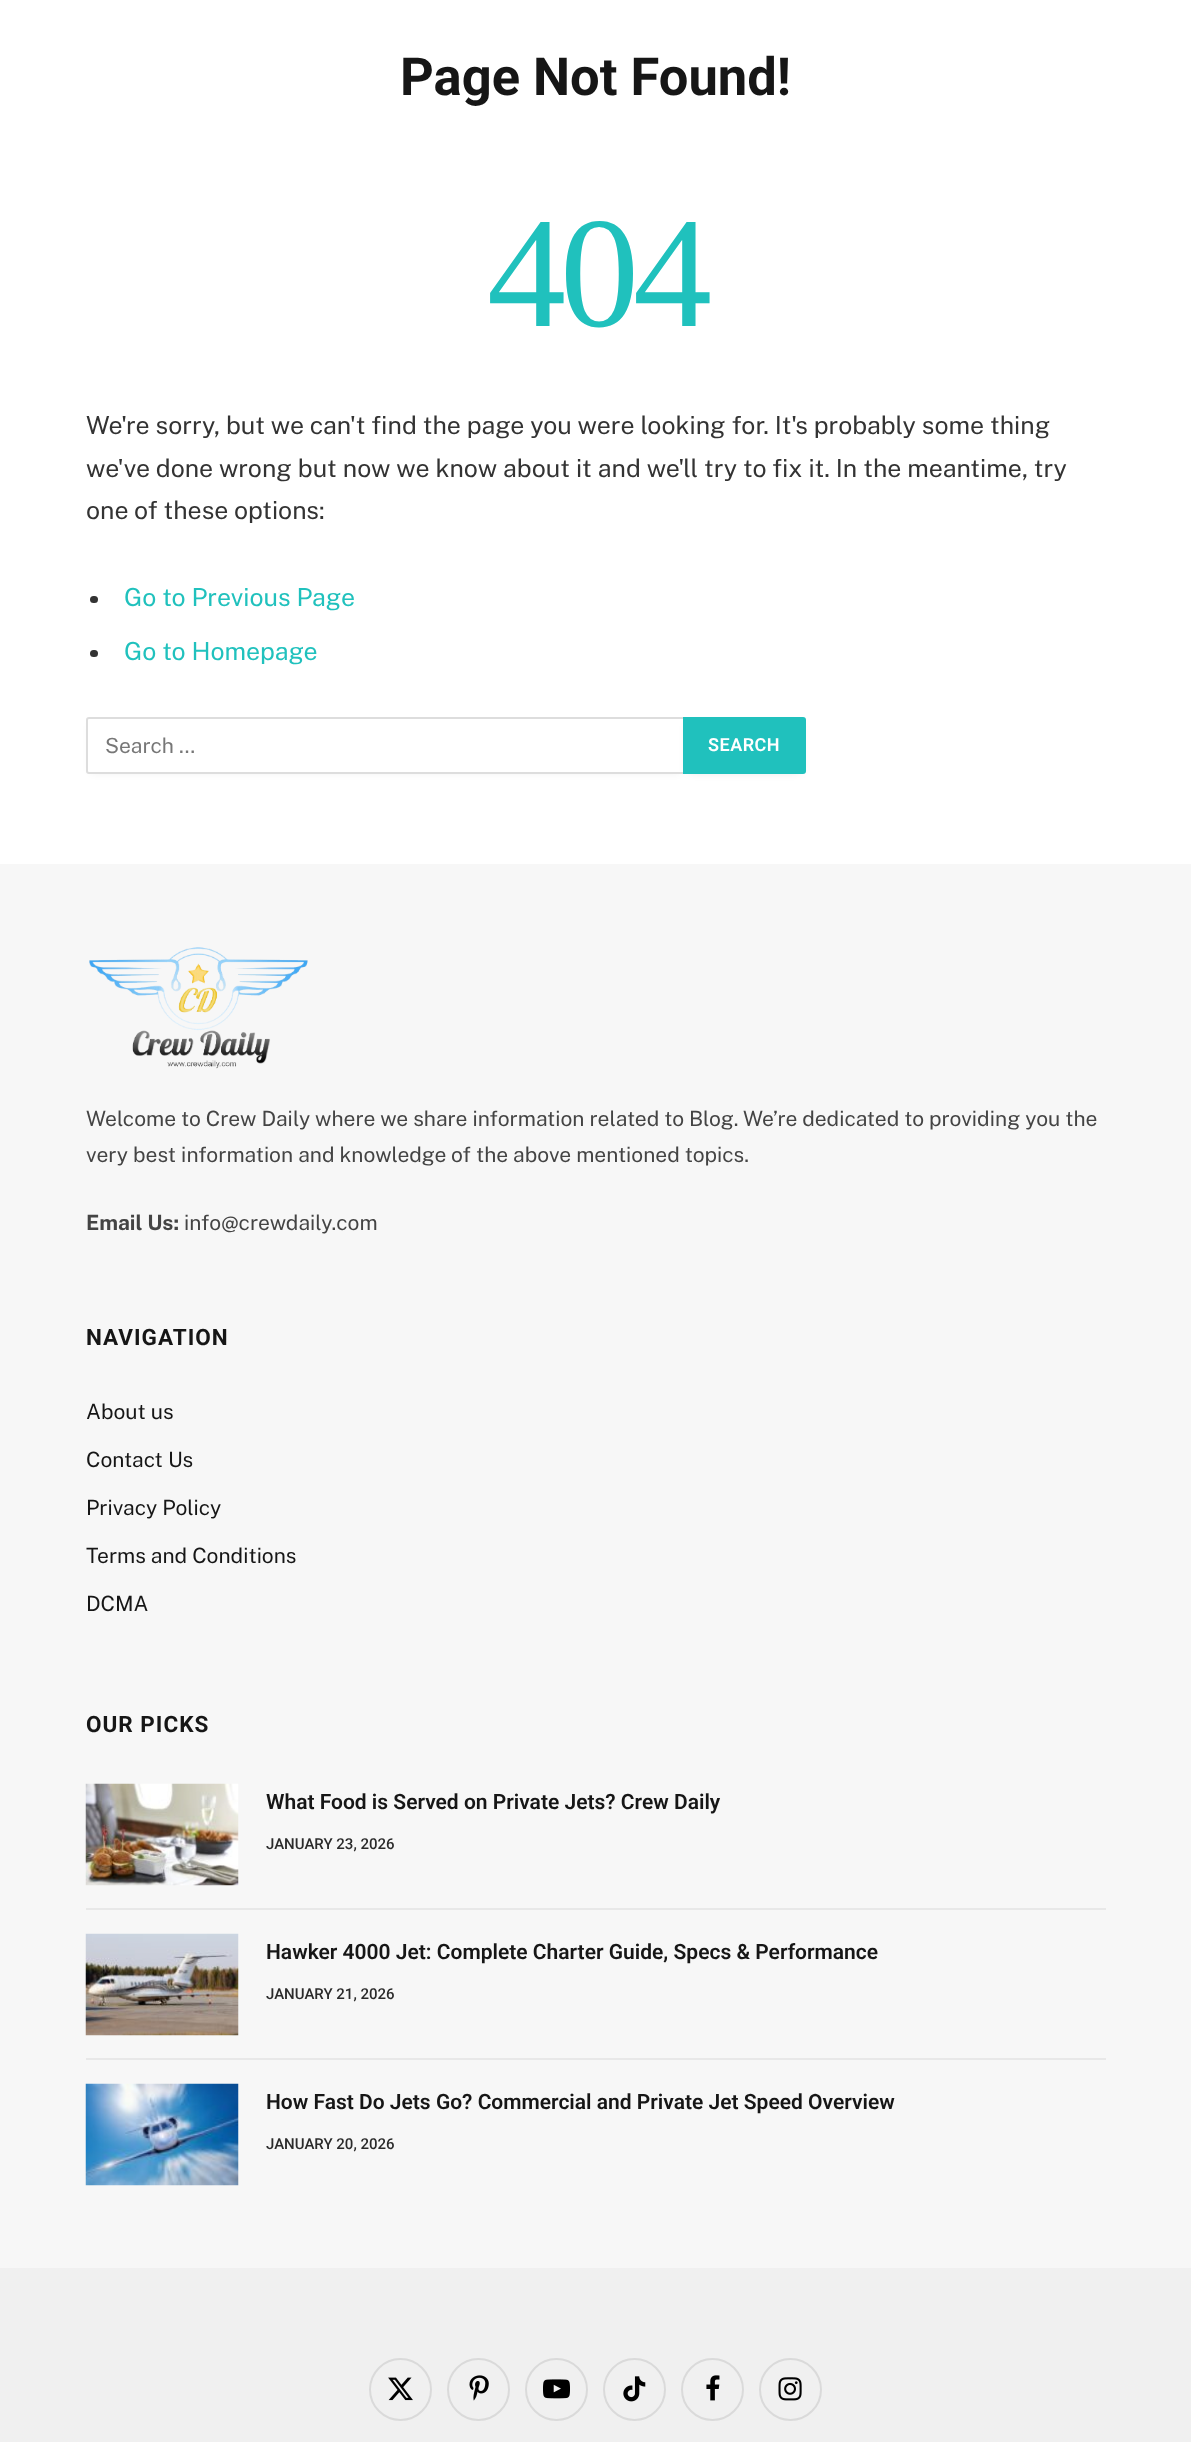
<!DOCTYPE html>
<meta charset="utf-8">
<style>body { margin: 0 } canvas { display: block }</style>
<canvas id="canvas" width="1191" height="2442"></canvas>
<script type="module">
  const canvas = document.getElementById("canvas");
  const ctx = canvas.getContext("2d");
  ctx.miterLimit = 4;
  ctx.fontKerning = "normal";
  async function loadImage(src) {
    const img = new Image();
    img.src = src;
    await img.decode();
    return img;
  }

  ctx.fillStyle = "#ffffff";
  ctx.fillRect(0, 0, 1191, 2442);
  ctx.font = "bold 52.5px Roboto";
  ctx.fillStyle = "#161616";
  ctx.fillText("Page Not Found!", 400, 95);
  ctx.letterSpacing = "-6px";
  ctx.font = "158px Liberation Serif";
  ctx.fillStyle = "#20c1bd";
  ctx.fillText("404", 487, 326);
  ctx.letterSpacing = "0px";
  ctx.font = "24.9px Public Sans";
  ctx.fillStyle = "#333333";
  ctx.fillText("We're sorry, but we can't find the page you were looking for. It's probably some thing", 86, 434);
  ctx.fillText("we've done wrong but now we know about it and we'll try to fix it. In the meantime, try", 86, 477);
  ctx.fillText("one of these options:", 86, 519);
  ctx.beginPath();
  ctx.roundRect(90, 596, 8, 7, 3.5);
  ctx.fill();
  ctx.fillStyle = "#20c1bd";
  ctx.fillText("Go to Previous Page", 124, 606);
  ctx.fillStyle = "#333333";
  ctx.beginPath();
  ctx.roundRect(90, 650, 8, 7, 3.5);
  ctx.fill();
  ctx.fillStyle = "#20c1bd";
  ctx.fillText("Go to Homepage", 124, 660);
  ctx.fillStyle = "rgba(0, 0, 0, 0.1)";
  ctx.filter = "blur(5px)";
  ctx.beginPath();
  ctx.rect(92, 726, 588, 45);
  ctx.fill();
  ctx.filter = "none";
  ctx.fillStyle = "#ffffff";
  ctx.beginPath();
  ctx.roundRect(87, 718, 598, 55, 2);
  ctx.fill();
  ctx.strokeStyle = "#dddddd";
  ctx.lineWidth = 2;
  ctx.stroke();
  ctx.font = "21px Public Sans";
  ctx.fillStyle = "#777777";
  ctx.fillText("Search …", 105, 753);
  ctx.fillStyle = "rgba(0, 0, 0, 0.16)";
  ctx.filter = "blur(5px)";
  ctx.beginPath();
  ctx.rect(689, 726, 111, 45);
  ctx.fill();
  ctx.filter = "none";
  ctx.fillStyle = "#20c1bd";
  ctx.beginPath();
  ctx.roundRect(683, 717, 123, 57, [0, 3, 3, 0]);
  ctx.fill();
  ctx.letterSpacing = "0.5px";
  ctx.font = "600 18px Roboto";
  ctx.fillStyle = "#ffffff";
  ctx.fillText("SEARCH", 708, 751);
  ctx.fillStyle = "#f7f7f7";
  ctx.fillRect(0, 864, 1191, 1404);
  ctx.drawImage(await loadImage("img1.png"), 89, 947, 219, 122);
  ctx.letterSpacing = "0px";
  ctx.font = "21px Public Sans";
  ctx.fillStyle = "#444444";
  ctx.fillText("Welcome to Crew Daily where we share information related to Blog. We’re dedicated to providing you the", 86, 1126);
  ctx.fillText("very best information and knowledge of the above mentioned topics.", 86, 1162);
  ctx.font = "bold 21px Public Sans";
  ctx.fillText("Email Us:", 86, 1230);
  ctx.font = "21px Public Sans";
  ctx.fillText("info@crewdaily.com", 184, 1230);
  ctx.letterSpacing = "1px";
  ctx.font = "bold 22.5px Roboto";
  ctx.fillStyle = "#161616";
  ctx.fillText("NAVIGATION", 86, 1345);
  ctx.letterSpacing = "0px";
  ctx.font = "21px Public Sans";
  ctx.fillText("About us", 86, 1419);
  ctx.fillText("Contact Us", 86, 1467);
  ctx.fillText("Privacy Policy", 86, 1515);
  ctx.fillText("Terms and Conditions", 86, 1563);
  ctx.fillText("DCMA", 86, 1611);
  ctx.letterSpacing = "1px";
  ctx.font = "bold 22.5px Roboto";
  ctx.fillText("OUR PICKS", 86, 1732);
  ctx.drawImage(await loadImage("img2.png"), 85, 1783, 154, 103);
  ctx.letterSpacing = "0px";
  ctx.font = "600 21px Roboto";
  ctx.fillText("What Food is Served on Private Jets? Crew Daily", 266, 1809);
  ctx.font = "500 15px Roboto";
  ctx.fillStyle = "#2b2b2b";
  ctx.fillText("JANUARY 23, 2026", 266, 1849);
  ctx.fillStyle = "#e8e8e8";
  ctx.fillRect(86, 1908, 1020, 2);
  ctx.drawImage(await loadImage("img3.png"), 85, 1933, 154, 103);
  ctx.font = "600 21px Roboto";
  ctx.fillStyle = "#161616";
  ctx.fillText("Hawker 4000 Jet: Complete Charter Guide, Specs & Performance", 266, 1959);
  ctx.font = "500 15px Roboto";
  ctx.fillStyle = "#2b2b2b";
  ctx.fillText("JANUARY 21, 2026", 266, 1999);
  ctx.fillStyle = "#e8e8e8";
  ctx.fillRect(86, 2058, 1020, 2);
  ctx.drawImage(await loadImage("img4.png"), 85, 2083, 154, 103);
  ctx.font = "600 21px Roboto";
  ctx.fillStyle = "#161616";
  ctx.fillText("How Fast Do Jets Go? Commercial and Private Jet Speed Overview", 266, 2109);
  ctx.font = "500 15px Roboto";
  ctx.fillStyle = "#2b2b2b";
  ctx.fillText("JANUARY 20, 2026", 266, 2149);
  ctx.fillStyle = "#f0f0f0";
  ctx.fillRect(0, 2268, 1191, 174);
  ctx.beginPath();
  ctx.arc(400.5, 2389.5, 30.5, 0, Math.PI * 2);
  ctx.strokeStyle = "#dadada";
  ctx.stroke();
  ctx.drawImage(await loadImage("img5.png"), 388, 2377, 25, 24);
  ctx.beginPath();
  ctx.arc(478.5, 2389.5, 30.5, 0, Math.PI * 2);
  ctx.stroke();
  ctx.drawImage(await loadImage("img6.png"), 469, 2375, 20, 26);
  ctx.beginPath();
  ctx.arc(556.5, 2389.5, 30.5, 0, Math.PI * 2);
  ctx.stroke();
  ctx.drawImage(await loadImage("img7.png"), 543, 2379, 27, 20);
  ctx.beginPath();
  ctx.arc(634.5, 2389.5, 30.5, 0, Math.PI * 2);
  ctx.stroke();
  ctx.drawImage(await loadImage("img8.png"), 623, 2376, 23, 26);
  ctx.beginPath();
  ctx.arc(712.5, 2389.5, 30.5, 0, Math.PI * 2);
  ctx.stroke();
  ctx.drawImage(await loadImage("img9.png"), 706, 2375, 14, 26);
  ctx.beginPath();
  ctx.arc(790.5, 2389.5, 30.5, 0, Math.PI * 2);
  ctx.stroke();
  ctx.drawImage(await loadImage("img10.png"), 778, 2377, 24, 24);
</script>
